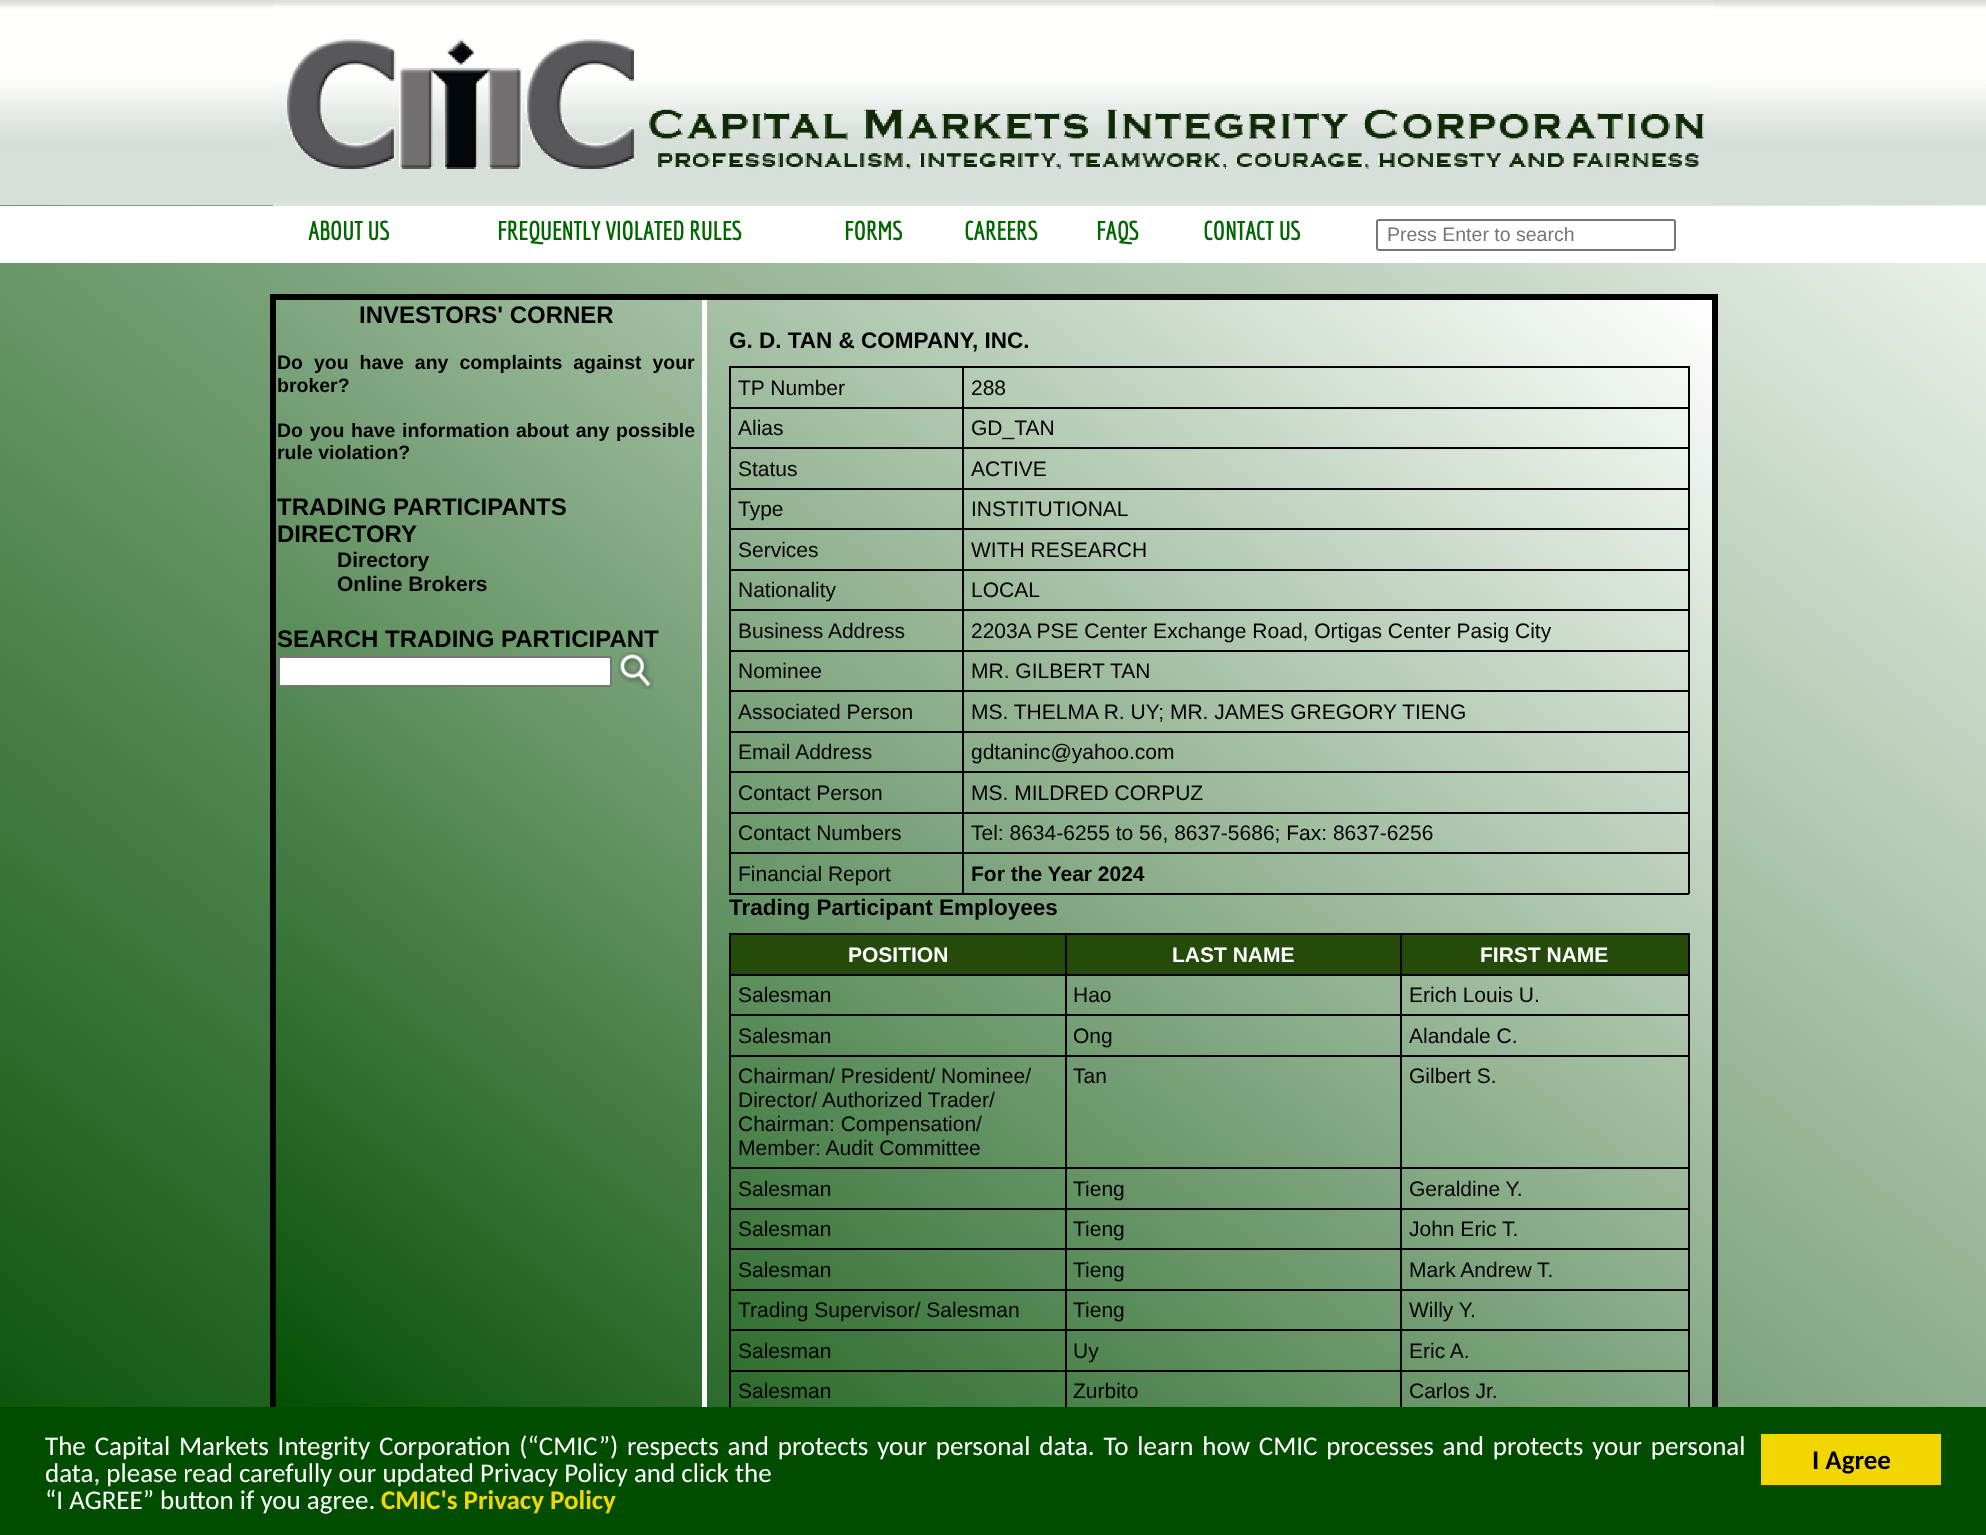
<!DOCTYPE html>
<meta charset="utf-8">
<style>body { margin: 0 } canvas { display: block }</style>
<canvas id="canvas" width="1986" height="1535"></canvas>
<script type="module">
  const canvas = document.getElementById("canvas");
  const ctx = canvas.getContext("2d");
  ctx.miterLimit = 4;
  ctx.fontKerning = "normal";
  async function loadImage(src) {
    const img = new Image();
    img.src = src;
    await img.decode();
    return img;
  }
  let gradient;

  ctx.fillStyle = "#ffffff";
  ctx.fillRect(0, 0, 1986, 1535);
  gradient = ctx.createLinearGradient(1760, -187, 226, 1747);
  gradient.addColorStop(0, "#ffffff");
  gradient.addColorStop(1, "#004d00");
  ctx.fillStyle = gradient;
  ctx.fillRect(0, 205, 1986, 1202);
  ctx.drawImage(await loadImage("img1.png"), 0, 0, 1986, 205);
  ctx.drawImage(await loadImage("img2.png"), 273, 0, 1440, 206);
  ctx.fillStyle = "#ffffff";
  ctx.fillRect(0, 206, 1986, 57);
  ctx.font = "bold 25.5px Economica";
  ctx.fillStyle = "#006600";
  ctx.fillText("ABOUT US", 308, 240);
  ctx.fillText("FREQUENTLY VIOLATED RULES", 497, 240);
  ctx.fillText("FORMS", 844, 240);
  ctx.fillText("CAREERS", 964, 240);
  ctx.fillText("FAQS", 1096, 240);
  ctx.fillText("CONTACT US", 1203, 240);
  ctx.beginPath();
  ctx.roundRect(1377, 220, 298, 30, 2);
  ctx.strokeStyle = "#767676";
  ctx.lineWidth = 2;
  ctx.stroke();
  ctx.font = "19.5px Liberation Sans";
  ctx.fillStyle = "#757575";
  ctx.fillText("Press Enter to search", 1387, 241);
  gradient = ctx.createLinearGradient(1548, 170, 439, 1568);
  gradient.addColorStop(0, "#ffffff");
  gradient.addColorStop(1, "#004d00");
  ctx.fillStyle = gradient;
  ctx.fillRect(276, 300, 1436, 1107);
  ctx.fillStyle = "#ffffff";
  ctx.fillRect(702, 296, 5, 1111);
  ctx.fillStyle = "#000000";
  ctx.fillRect(270, 294, 1448, 6);
  ctx.fillRect(1712, 294, 6, 1113);
  ctx.fillRect(270, 294, 6, 1113);
  ctx.font = "bold 24px Liberation Sans";
  ctx.fillText("INVESTORS' CORNER", 359, 323);
  ctx.wordSpacing = "5.5px";
  ctx.font = "bold 19.5px Liberation Sans";
  ctx.fillText("Do you have any complaints against your", 277, 369);
  ctx.wordSpacing = "0px";
  ctx.fillText("broker?", 277, 392);
  ctx.wordSpacing = "1.25px";
  ctx.fillText("Do you have information about any possible", 277, 437);
  ctx.wordSpacing = "0px";
  ctx.fillText("rule violation?", 277, 459);
  ctx.font = "bold 24px Liberation Sans";
  ctx.fillText("TRADING PARTICIPANTS", 277, 515);
  ctx.fillText("DIRECTORY", 277, 542);
  ctx.font = "bold 21px Liberation Sans";
  ctx.fillText("Directory", 337, 567);
  ctx.fillText("Online Brokers", 337, 591);
  ctx.font = "bold 24px Liberation Sans";
  ctx.fillText("SEARCH TRADING PARTICIPANT", 277, 647);
  ctx.fillStyle = "#ffffff";
  ctx.beginPath();
  ctx.roundRect(279, 657, 332, 29, 2);
  ctx.fill();
  ctx.stroke();
  ctx.drawImage(await loadImage("img3.png"), 618, 652, 36, 37);
  ctx.font = "bold 22.5px Liberation Sans";
  ctx.fillStyle = "#000000";
  ctx.fillText("G. D. TAN & COMPANY, INC.", 729, 348);
  ctx.fillRect(962, 366, 727, 2);
  ctx.fillRect(962, 407, 727, 2);
  ctx.fillRect(962, 447, 727, 2);
  ctx.fillRect(962, 488, 727, 2);
  ctx.fillRect(962, 528, 727, 2);
  ctx.fillRect(962, 569, 727, 2);
  ctx.fillRect(962, 609, 727, 2);
  ctx.fillRect(962, 650, 727, 2);
  ctx.fillRect(962, 690, 727, 2);
  ctx.fillRect(962, 731, 727, 2);
  ctx.fillRect(962, 771, 727, 2);
  ctx.fillRect(962, 812, 727, 2);
  ctx.fillRect(962, 852, 727, 2);
  ctx.fillRect(1688, 852, 2, 42);
  ctx.fillRect(962, 893, 727, 2);
  ctx.fillRect(962, 852, 2, 42);
  ctx.fillRect(729, 852, 234, 2);
  ctx.fillRect(962, 812, 2, 42);
  ctx.fillRect(729, 812, 234, 2);
  ctx.fillRect(962, 771, 2, 42);
  ctx.fillRect(729, 771, 234, 2);
  ctx.fillRect(962, 731, 2, 42);
  ctx.fillRect(729, 731, 234, 2);
  ctx.fillRect(962, 690, 2, 42);
  ctx.fillRect(729, 690, 234, 2);
  ctx.fillRect(962, 650, 2, 42);
  ctx.fillRect(729, 650, 234, 2);
  ctx.fillRect(962, 609, 2, 42);
  ctx.fillRect(729, 609, 234, 2);
  ctx.fillRect(962, 569, 2, 42);
  ctx.fillRect(729, 569, 234, 2);
  ctx.fillRect(962, 528, 2, 42);
  ctx.fillRect(729, 528, 234, 2);
  ctx.fillRect(962, 488, 2, 42);
  ctx.fillRect(729, 488, 234, 2);
  ctx.fillRect(962, 447, 2, 42);
  ctx.fillRect(729, 447, 234, 2);
  ctx.fillRect(962, 407, 2, 42);
  ctx.fillRect(729, 407, 234, 2);
  ctx.fillRect(962, 366, 2, 42);
  ctx.fillRect(729, 366, 234, 2);
  ctx.fillRect(729, 893, 234, 2);
  ctx.fillRect(729, 852, 2, 42);
  ctx.fillRect(729, 812, 2, 42);
  ctx.fillRect(729, 771, 2, 42);
  ctx.fillRect(729, 731, 2, 42);
  ctx.fillRect(729, 690, 2, 42);
  ctx.fillRect(729, 650, 2, 42);
  ctx.fillRect(729, 609, 2, 42);
  ctx.fillRect(729, 569, 2, 42);
  ctx.fillRect(729, 528, 2, 42);
  ctx.fillRect(729, 488, 2, 42);
  ctx.fillRect(729, 447, 2, 42);
  ctx.fillRect(729, 407, 2, 42);
  ctx.fillRect(729, 366, 2, 42);
  ctx.font = "21px Liberation Sans";
  ctx.fillText("TP Number", 738, 395);
  ctx.fillRect(1688, 812, 2, 42);
  ctx.fillRect(1688, 771, 2, 42);
  ctx.fillRect(1688, 731, 2, 42);
  ctx.fillRect(1688, 690, 2, 42);
  ctx.fillRect(1688, 650, 2, 42);
  ctx.fillRect(1688, 609, 2, 42);
  ctx.fillRect(1688, 569, 2, 42);
  ctx.fillRect(1688, 528, 2, 42);
  ctx.fillRect(1688, 488, 2, 42);
  ctx.fillRect(1688, 447, 2, 42);
  ctx.fillRect(1688, 407, 2, 42);
  ctx.fillRect(1688, 366, 2, 42);
  ctx.fillText("288", 971, 395);
  ctx.fillText("Alias", 738, 435);
  ctx.fillText("GD_TAN", 971, 435);
  ctx.fillText("Status", 738, 476);
  ctx.fillText("ACTIVE", 971, 476);
  ctx.fillText("Type", 738, 516);
  ctx.fillText("INSTITUTIONAL", 971, 516);
  ctx.fillText("Services", 738, 557);
  ctx.fillText("WITH RESEARCH", 971, 557);
  ctx.fillText("Nationality", 738, 597);
  ctx.fillText("LOCAL", 971, 597);
  ctx.fillText("Business Address", 738, 638);
  ctx.fillText("2203A PSE Center Exchange Road, Ortigas Center Pasig City", 971, 638);
  ctx.fillText("Nominee", 738, 678);
  ctx.fillText("MR. GILBERT TAN", 971, 678);
  ctx.fillText("Associated Person", 738, 719);
  ctx.fillText("MS. THELMA R. UY; MR. JAMES GREGORY TIENG", 971, 719);
  ctx.fillText("Email Address", 738, 759);
  ctx.fillText("gdtaninc@yahoo.com", 971, 759);
  ctx.fillText("Contact Person", 738, 800);
  ctx.fillText("MS. MILDRED CORPUZ", 971, 800);
  ctx.fillText("Contact Numbers", 738, 840);
  ctx.fillText("Tel: 8634-6255 to 56, 8637-5686; Fax: 8637-6256", 971, 840);
  ctx.fillText("Financial Report", 738, 881);
  ctx.font = "bold 21px Liberation Sans";
  ctx.fillText("For the Year 2024", 971, 881);
  ctx.font = "bold 22.5px Liberation Sans";
  ctx.fillText("Trading Participant Employees", 729, 915);
  ctx.fillStyle = "#244b09";
  ctx.fillRect(731, 935, 334, 39);
  ctx.fillStyle = "#000000";
  ctx.fillRect(1400, 933, 289, 2);
  ctx.fillRect(1400, 974, 289, 2);
  ctx.fillRect(1400, 1014, 289, 2);
  ctx.fillRect(1400, 1055, 289, 2);
  ctx.fillRect(1400, 1167, 289, 2);
  ctx.fillRect(1400, 1208, 289, 2);
  ctx.fillRect(1400, 1248, 289, 2);
  ctx.fillRect(1400, 1289, 289, 2);
  ctx.fillRect(1400, 1329, 289, 2);
  ctx.fillRect(1400, 1370, 289, 2);
  ctx.fillRect(1400, 1370, 2, 42);
  ctx.fillRect(1065, 1370, 336, 2);
  ctx.fillRect(1400, 1329, 2, 42);
  ctx.fillRect(1065, 1329, 336, 2);
  ctx.fillRect(1400, 1289, 2, 42);
  ctx.fillRect(1065, 1289, 336, 2);
  ctx.fillRect(1400, 1248, 2, 42);
  ctx.fillRect(1065, 1248, 336, 2);
  ctx.fillRect(1400, 1208, 2, 42);
  ctx.fillRect(1065, 1208, 336, 2);
  ctx.fillRect(1400, 1167, 2, 42);
  ctx.fillRect(1065, 1167, 336, 2);
  ctx.fillRect(1400, 1055, 2, 114);
  ctx.fillRect(1065, 1055, 336, 2);
  ctx.fillRect(1400, 1014, 2, 42);
  ctx.fillRect(1065, 1014, 336, 2);
  ctx.fillRect(1400, 974, 2, 42);
  ctx.fillRect(1065, 974, 336, 2);
  ctx.fillRect(1400, 933, 2, 42);
  ctx.fillRect(1065, 933, 336, 2);
  ctx.fillRect(1065, 1370, 2, 42);
  ctx.fillRect(729, 1370, 338, 2);
  ctx.fillRect(1065, 1329, 2, 42);
  ctx.fillRect(729, 1329, 338, 2);
  ctx.fillRect(1065, 1289, 2, 42);
  ctx.fillRect(729, 1289, 338, 2);
  ctx.fillRect(1065, 1248, 2, 42);
  ctx.fillRect(729, 1248, 338, 2);
  ctx.fillRect(1065, 1208, 2, 42);
  ctx.fillRect(729, 1208, 338, 2);
  ctx.fillRect(1065, 1167, 2, 42);
  ctx.fillRect(729, 1167, 338, 2);
  ctx.fillRect(1065, 1055, 2, 114);
  ctx.fillRect(729, 1055, 338, 2);
  ctx.fillRect(1065, 1014, 2, 42);
  ctx.fillRect(729, 1014, 338, 2);
  ctx.fillRect(1065, 974, 2, 42);
  ctx.fillRect(729, 974, 338, 2);
  ctx.fillRect(1065, 933, 2, 42);
  ctx.fillRect(729, 933, 338, 2);
  ctx.fillRect(729, 1370, 2, 42);
  ctx.fillRect(729, 1329, 2, 42);
  ctx.fillRect(729, 1289, 2, 42);
  ctx.fillRect(729, 1248, 2, 42);
  ctx.fillRect(729, 1208, 2, 42);
  ctx.fillRect(729, 1167, 2, 42);
  ctx.fillRect(729, 1055, 2, 114);
  ctx.fillRect(729, 1014, 2, 42);
  ctx.fillRect(729, 974, 2, 42);
  ctx.fillRect(729, 933, 2, 42);
  ctx.font = "bold 21px Liberation Sans";
  ctx.fillStyle = "#ffffff";
  ctx.fillText("POSITION", 848, 962);
  ctx.fillStyle = "#244b09";
  ctx.fillRect(1067, 935, 333, 39);
  ctx.fillStyle = "#ffffff";
  ctx.fillText("LAST NAME", 1172, 962);
  ctx.fillStyle = "#244b09";
  ctx.fillRect(1402, 935, 286, 39);
  ctx.fillStyle = "#000000";
  ctx.fillRect(1688, 1370, 2, 42);
  ctx.fillRect(1688, 1329, 2, 42);
  ctx.fillRect(1688, 1289, 2, 42);
  ctx.fillRect(1688, 1248, 2, 42);
  ctx.fillRect(1688, 1208, 2, 42);
  ctx.fillRect(1688, 1167, 2, 42);
  ctx.fillRect(1688, 1055, 2, 114);
  ctx.fillRect(1688, 1014, 2, 42);
  ctx.fillRect(1688, 974, 2, 42);
  ctx.fillRect(1688, 933, 2, 42);
  ctx.fillStyle = "#ffffff";
  ctx.fillText("FIRST NAME", 1480, 962);
  ctx.font = "21px Liberation Sans";
  ctx.fillStyle = "#000000";
  ctx.fillText("Salesman", 738, 1002);
  ctx.fillText("Hao", 1073, 1002);
  ctx.fillText("Erich Louis U.", 1409, 1002);
  ctx.fillText("Salesman", 738, 1043);
  ctx.fillText("Ong", 1073, 1043);
  ctx.fillText("Alandale C.", 1409, 1043);
  ctx.fillText("Chairman/ President/ Nominee/", 738, 1083);
  ctx.fillText("Director/ Authorized Trader/", 738, 1107);
  ctx.fillText("Chairman: Compensation/", 738, 1131);
  ctx.fillText("Member: Audit Committee", 738, 1155);
  ctx.fillText("Tan", 1073, 1083);
  ctx.fillText("Gilbert S.", 1409, 1083);
  ctx.fillText("Salesman", 738, 1196);
  ctx.fillText("Tieng", 1073, 1196);
  ctx.fillText("Geraldine Y.", 1409, 1196);
  ctx.fillText("Salesman", 738, 1236);
  ctx.fillText("Tieng", 1073, 1236);
  ctx.fillText("John Eric T.", 1409, 1236);
  ctx.fillText("Salesman", 738, 1277);
  ctx.fillText("Tieng", 1073, 1277);
  ctx.fillText("Mark Andrew T.", 1409, 1277);
  ctx.fillText("Trading Supervisor/ Salesman", 738, 1317);
  ctx.fillText("Tieng", 1073, 1317);
  ctx.fillText("Willy Y.", 1409, 1317);
  ctx.fillText("Salesman", 738, 1358);
  ctx.fillText("Uy", 1073, 1358);
  ctx.fillText("Eric A.", 1409, 1358);
  ctx.fillText("Salesman", 738, 1398);
  ctx.fillText("Zurbito", 1073, 1398);
  ctx.fillText("Carlos Jr.", 1409, 1398);
  ctx.fillStyle = "#004d00";
  ctx.fillRect(0, 1407, 1986, 128);
  ctx.wordSpacing = "2.75px";
  ctx.font = "27px Carlito";
  ctx.fillStyle = "#ffffff";
  ctx.fillText("The Capital Markets Integrity Corporation (“CMIC”) respects and protects your personal data. To learn how CMIC processes and protects your personal", 45, 1455);
  ctx.wordSpacing = "0px";
  ctx.fillText("data, please read carefully our updated Privacy Policy and click the", 45, 1482);
  ctx.fillText("“I AGREE” button if you agree.", 45, 1509);
  ctx.font = "bold 27px Carlito";
  ctx.fillStyle = "#f1d600";
  ctx.fillText("CMIC's Privacy Policy", 381, 1509);
  ctx.fillRect(1761, 1434, 180, 51);
  ctx.fillStyle = "#000000";
  ctx.fillText("I Agree", 1812, 1469);
</script>
